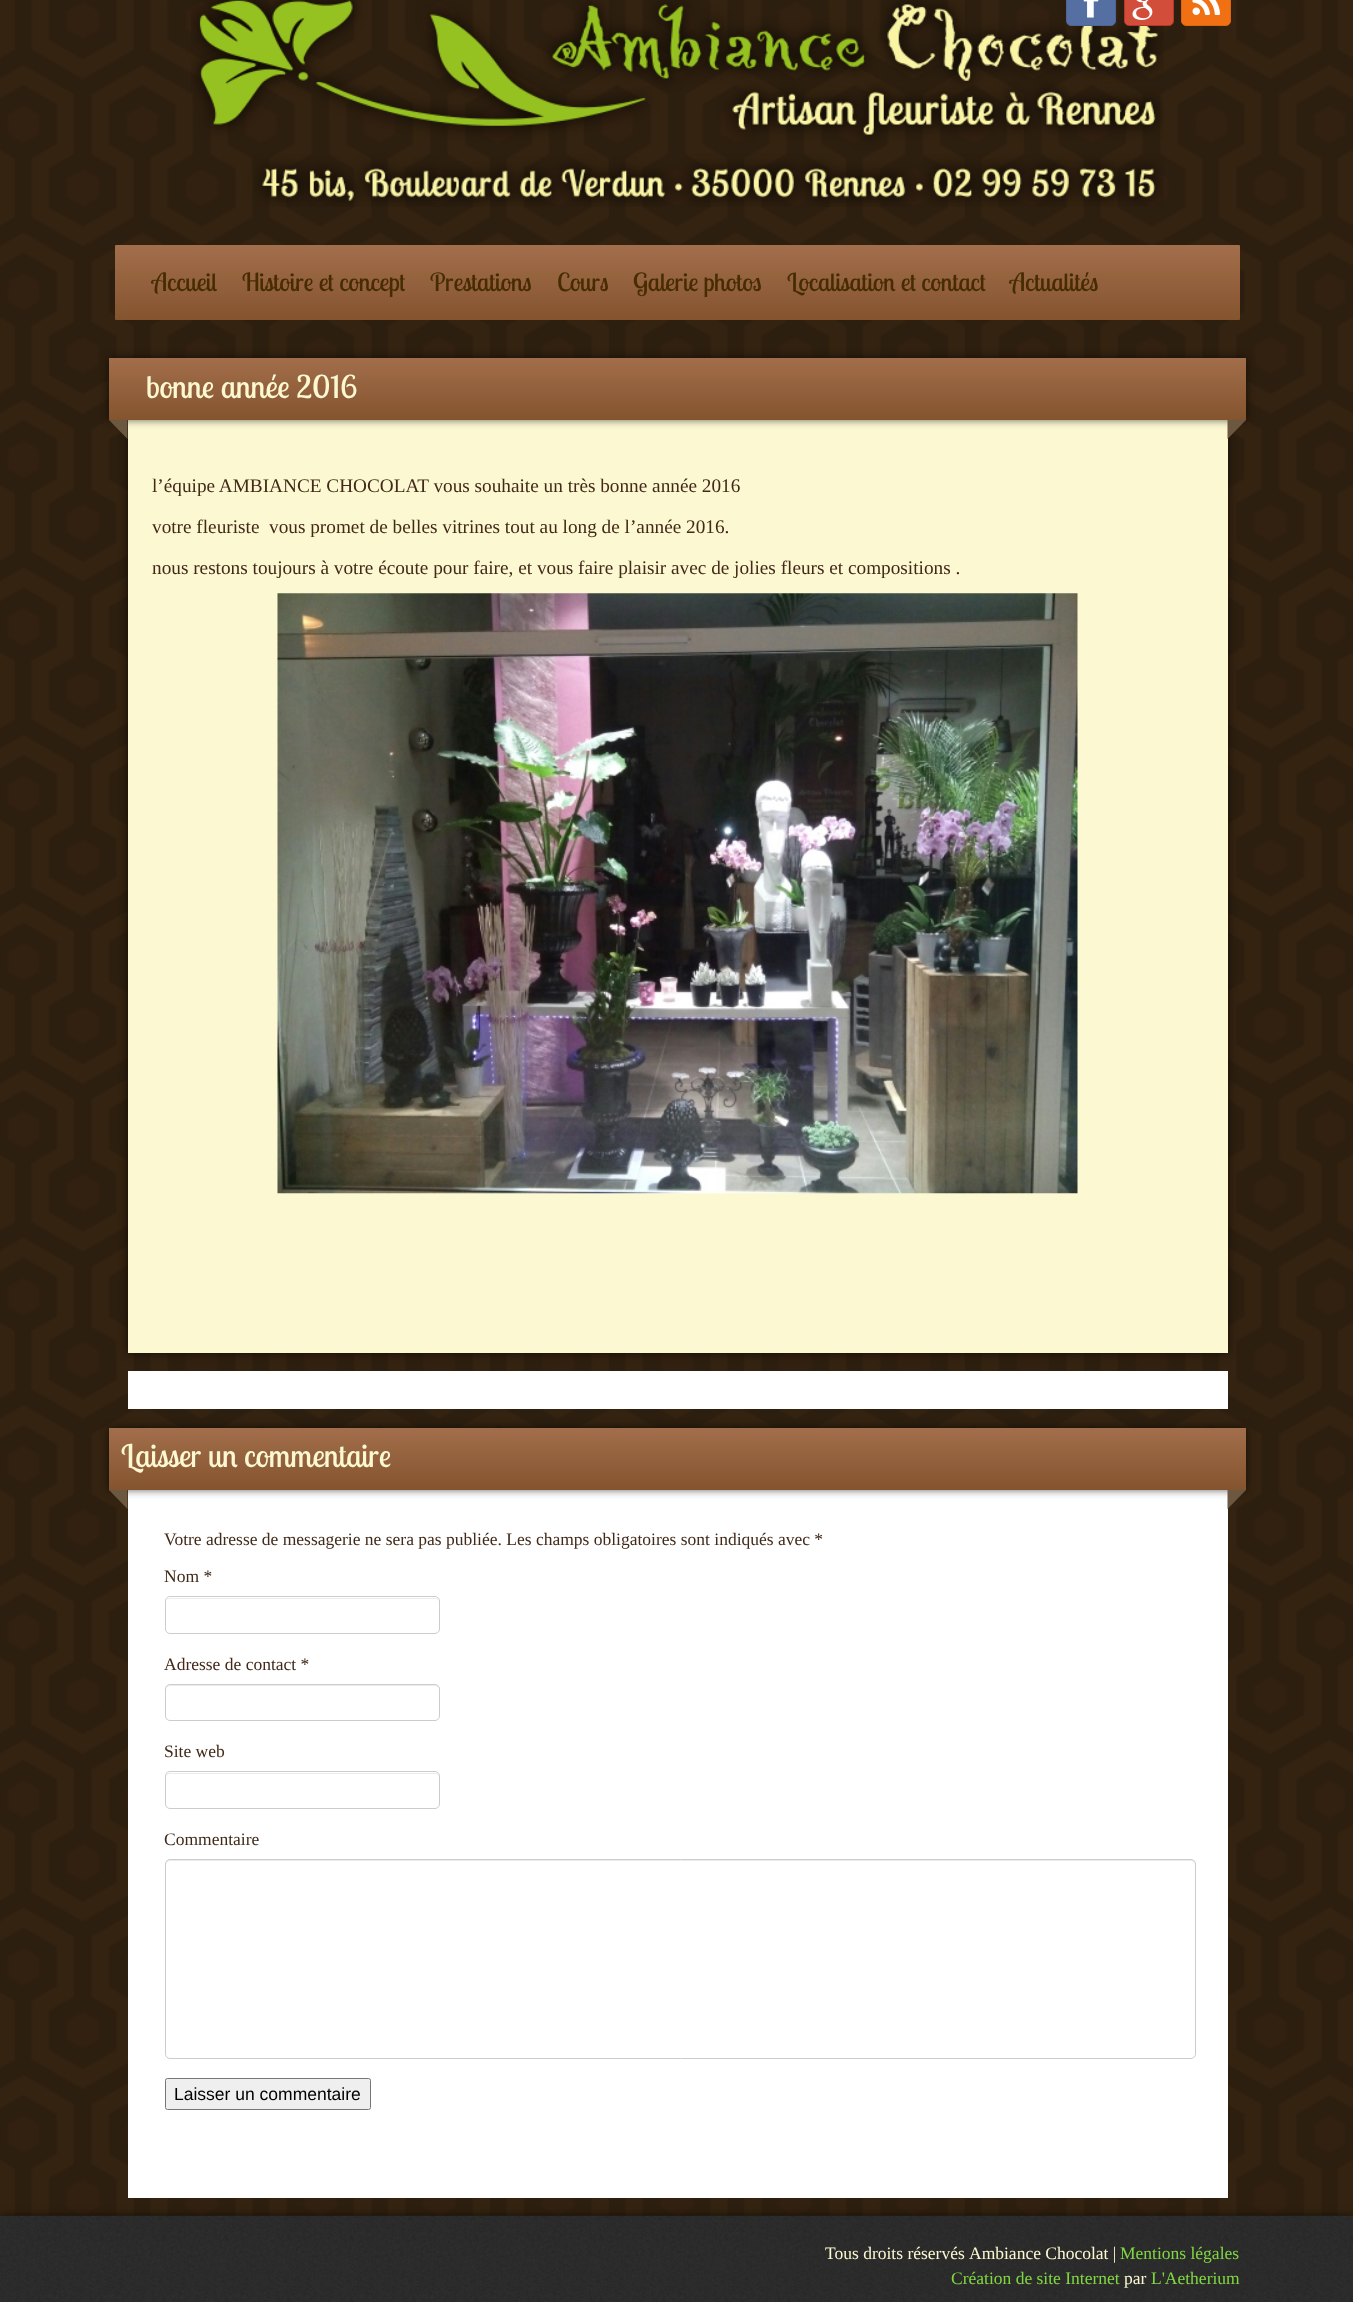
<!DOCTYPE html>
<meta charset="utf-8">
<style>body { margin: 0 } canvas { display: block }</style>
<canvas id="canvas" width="1353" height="2302"></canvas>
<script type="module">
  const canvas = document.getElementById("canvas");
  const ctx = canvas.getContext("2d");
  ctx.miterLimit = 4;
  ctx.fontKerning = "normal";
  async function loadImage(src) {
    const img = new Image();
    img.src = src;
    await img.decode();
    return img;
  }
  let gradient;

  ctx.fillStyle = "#2f2110";
  ctx.fillRect(0, 0, 1353, 2302);
  ctx.drawImage(await loadImage("img1.png"), 0, 0, 1353, 2216);
  ctx.drawImage(await loadImage("img5.png"), 191, 0, 973, 207);
  ctx.fillStyle = "#556fa3";
  ctx.beginPath();
  ctx.roundRect(1066.5, -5.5, 49, 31, 4.5);
  ctx.fill();
  ctx.strokeStyle = "#4d6595";
  ctx.stroke();
  ctx.drawImage(await loadImage("img2.png"), 1083, 0, 16, 18);
  ctx.fillStyle = "#d34d3b";
  ctx.beginPath();
  ctx.roundRect(1124.5, -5.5, 49, 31, 4.5);
  ctx.fill();
  ctx.strokeStyle = "#b43727";
  ctx.stroke();
  ctx.drawImage(await loadImage("img3.png"), 1132, 0, 21, 20);
  ctx.fillStyle = "#f07013";
  ctx.beginPath();
  ctx.roundRect(1181.5, -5.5, 49, 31, 4.5);
  ctx.fill();
  ctx.strokeStyle = "#dc650e";
  ctx.stroke();
  ctx.drawImage(await loadImage("img4.png"), 1192, 0, 28, 15);
  gradient = ctx.createLinearGradient(678, 245, 678, 320);
  gradient.addColorStop(0, "#a36e4b");
  gradient.addColorStop(1, "#84542f");
  ctx.fillStyle = gradient;
  ctx.beginPath();
  ctx.roundRect(115, 245, 1125, 75, 1);
  ctx.fill();
  ctx.font = "25px Lobster Two";
  ctx.fillStyle = "#462c00";
  ctx.fillText("Accueil", 152, 291);
  ctx.fillText("Histoire et concept", 242, 291);
  ctx.fillText("Prestations", 430, 291);
  ctx.fillText("Cours", 557, 291);
  ctx.fillText("Galerie photos", 633, 291);
  ctx.fillText("Localisation et contact", 787, 291);
  ctx.fillText("Actualités", 1010, 291);
  ctx.fillStyle = "rgba(0, 0, 0, 0.6)";
  ctx.filter = "blur(4.5px)";
  ctx.beginPath();
  ctx.rect(128, 420, 1100, 933);
  ctx.fill();
  ctx.filter = "none";
  ctx.fillStyle = "#fcf9d2";
  ctx.fillRect(128, 420, 1100, 933);
  ctx.fillStyle = "rgba(0, 0, 0, 0.6)";
  ctx.filter = "blur(4.5px)";
  ctx.beginPath();
  ctx.rect(109, 358, 1137, 62);
  ctx.fill();
  ctx.filter = "none";
  gradient = ctx.createLinearGradient(678, 357, 678, 420);
  gradient.addColorStop(0, "#a36e4b");
  gradient.addColorStop(1, "#84542f");
  ctx.fillStyle = gradient;
  ctx.fillRect(109, 358, 1137, 62);
  ctx.font = "31.5px Lobster Two";
  ctx.fillStyle = "#fcf9d2";
  ctx.fillText("bonne année 2016", 146, 398);
  ctx.fillStyle = "#6c5841";
  ctx.beginPath();
  ctx.moveTo(127.5, 420);
  ctx.lineTo(127.5, 439);
  ctx.lineTo(109, 420);
  ctx.closePath();
  ctx.fill();
  ctx.beginPath();
  ctx.moveTo(1227.5, 439);
  ctx.lineTo(1227.5, 420);
  ctx.lineTo(1246, 420);
  ctx.closePath();
  ctx.fill();
  ctx.font = "19.25px Liberation Serif";
  ctx.fillStyle = "#422918";
  ctx.fillText("l’équipe AMBIANCE CHOCOLAT vous souhaite un très bonne année 2016", 152, 492);
  ctx.fillText("votre fleuriste  vous promet de belles vitrines tout au long de l’année 2016.", 152, 533);
  ctx.fillText("nous restons toujours à votre écoute pour faire, et vous faire plaisir avec de jolies fleurs et compositions .", 152, 574);
  ctx.drawImage(await loadImage("img6.png"), 277, 593, 801, 601);
  ctx.fillStyle = "#ffffff";
  ctx.fillRect(128, 1371, 1100, 38);
  ctx.fillRect(128, 1490, 1100, 708);
  ctx.fillStyle = "rgba(0, 0, 0, 0.6)";
  ctx.filter = "blur(4.5px)";
  ctx.beginPath();
  ctx.rect(109, 1428, 1137, 62);
  ctx.fill();
  ctx.filter = "none";
  gradient = ctx.createLinearGradient(678, 1428, 678, 1490);
  gradient.addColorStop(0, "#a36e4b");
  gradient.addColorStop(1, "#84542f");
  ctx.fillStyle = gradient;
  ctx.fillRect(109, 1428, 1137, 62);
  ctx.font = "31.5px Lobster Two";
  ctx.fillStyle = "#fcf9d2";
  ctx.fillText("Laisser un commentaire", 121, 1467);
  ctx.fillStyle = "#6c5841";
  ctx.beginPath();
  ctx.moveTo(127.5, 1490);
  ctx.lineTo(127.5, 1509);
  ctx.lineTo(109, 1490);
  ctx.closePath();
  ctx.fill();
  ctx.beginPath();
  ctx.moveTo(1227.5, 1509);
  ctx.lineTo(1227.5, 1490);
  ctx.lineTo(1246, 1490);
  ctx.closePath();
  ctx.fill();
  ctx.font = "17.5px Liberation Serif";
  ctx.fillStyle = "#422918";
  ctx.fillText("Votre adresse de messagerie ne sera pas publiée. Les champs obligatoires sont indiqués avec *", 164, 1545);
  ctx.fillText("Nom *", 164, 1582);
  ctx.fillStyle = "#ececec";
  ctx.beginPath();
  ctx.moveTo(170, 1599);
  ctx.lineTo(436, 1599);
  ctx.lineTo(439, 1601);
  ctx.lineTo(439, 1602);
  ctx.bezierCurveTo(439, 1600, 437, 1598, 435, 1598);
  ctx.lineTo(170, 1598);
  ctx.bezierCurveTo(168, 1598, 166, 1600, 166, 1602);
  ctx.bezierCurveTo(166, 1600, 168, 1599, 170, 1599);
  ctx.closePath();
  ctx.fill();
  ctx.beginPath();
  ctx.roundRect(165.5, 1596.5, 274, 37, 4.5);
  ctx.strokeStyle = "#cccccc";
  ctx.stroke();
  ctx.fillStyle = "#422918";
  ctx.fillText("Adresse de contact *", 164, 1670);
  ctx.fillStyle = "#ececec";
  ctx.beginPath();
  ctx.moveTo(170, 1686);
  ctx.lineTo(435, 1686);
  ctx.bezierCurveTo(437, 1686, 439, 1688, 439, 1690);
  ctx.bezierCurveTo(439, 1687, 438, 1685, 435, 1685);
  ctx.lineTo(170, 1685);
  ctx.bezierCurveTo(167, 1685, 166, 1687, 166, 1690);
  ctx.bezierCurveTo(166, 1688, 168, 1686, 170, 1686);
  ctx.closePath();
  ctx.fill();
  ctx.beginPath();
  ctx.roundRect(165.5, 1684.5, 274, 36, 4.5);
  ctx.stroke();
  ctx.fillStyle = "#422918";
  ctx.fillText("Site web", 164, 1757);
  ctx.fillStyle = "#ececec";
  ctx.beginPath();
  ctx.moveTo(170, 1774);
  ctx.lineTo(435, 1774);
  ctx.bezierCurveTo(437, 1774, 439, 1775, 439, 1778);
  ctx.bezierCurveTo(439, 1775, 438, 1773, 435, 1773);
  ctx.lineTo(170, 1773);
  ctx.bezierCurveTo(167, 1773, 166, 1775, 166, 1778);
  ctx.bezierCurveTo(166, 1775, 168, 1774, 170, 1774);
  ctx.closePath();
  ctx.fill();
  ctx.beginPath();
  ctx.roundRect(165.5, 1771.5, 274, 37, 4.5);
  ctx.stroke();
  ctx.fillStyle = "#422918";
  ctx.fillText("Commentaire", 164, 1845);
  ctx.fillStyle = "#ececec";
  ctx.beginPath();
  ctx.moveTo(170, 1861);
  ctx.lineTo(1191, 1861);
  ctx.bezierCurveTo(1193, 1861, 1195, 1863, 1195, 1865);
  ctx.bezierCurveTo(1195, 1862, 1194, 1860, 1191, 1860);
  ctx.lineTo(170, 1860);
  ctx.bezierCurveTo(167, 1860, 166, 1862, 166, 1865);
  ctx.bezierCurveTo(166, 1863, 168, 1861, 170, 1861);
  ctx.closePath();
  ctx.fill();
  ctx.beginPath();
  ctx.roundRect(165.5, 1859.5, 1030, 199, 4.5);
  ctx.stroke();
  ctx.fillStyle = "#efefef";
  ctx.beginPath();
  ctx.roundRect(165.5, 2078.5, 205, 31, 2);
  ctx.fill();
  ctx.strokeStyle = "#767676";
  ctx.stroke();
  ctx.font = "17.5px Liberation Sans";
  ctx.fillStyle = "#000000";
  ctx.fillText("Laisser un commentaire", 174, 2100);
  ctx.fillStyle = "rgba(0, 0, 0, 0.6)";
  ctx.filter = "blur(4.5px)";
  ctx.beginPath();
  ctx.rect(0, 2216, 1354, 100);
  ctx.fill();
  ctx.filter = "none";
  ctx.drawImage(await loadImage("img7.png"), 0, 2215, 1353, 87);
  ctx.font = "17.5px Liberation Serif";
  ctx.fillStyle = "#fcf9d2";
  ctx.fillText("Tous droits réservés", 825, 2259);
  ctx.fillText("Ambiance Chocolat |", 969, 2259);
  ctx.fillStyle = "#81d742";
  ctx.fillText("Mentions légales", 1120, 2259);
  ctx.fillText("Création de site Internet", 951, 2284);
  ctx.fillStyle = "#fcf9d2";
  ctx.fillText("par", 1124, 2284);
  ctx.fillStyle = "#81d742";
  ctx.fillText("L'Aetherium", 1151, 2284);
</script>
